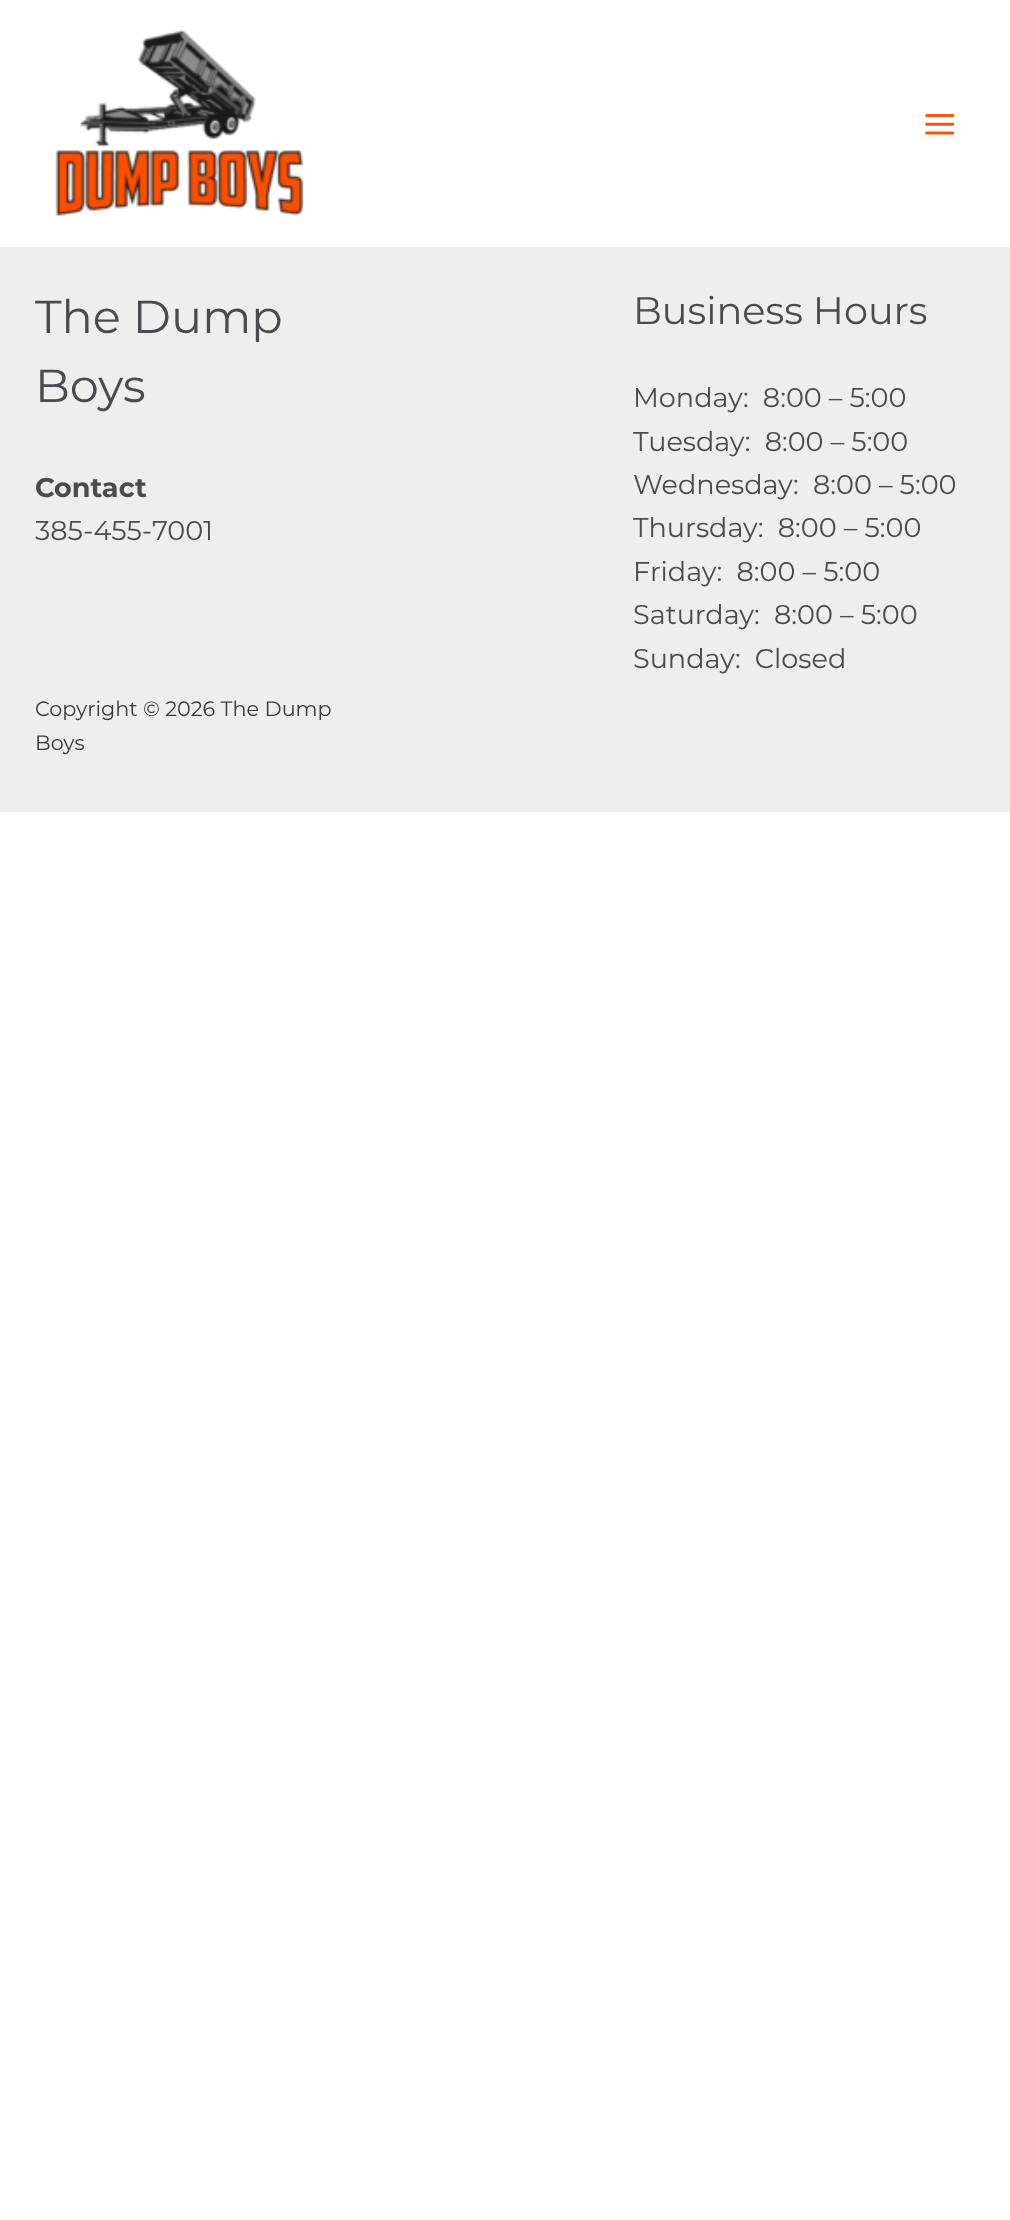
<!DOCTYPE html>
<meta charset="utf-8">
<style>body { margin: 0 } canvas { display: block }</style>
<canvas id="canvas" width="1010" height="2220"></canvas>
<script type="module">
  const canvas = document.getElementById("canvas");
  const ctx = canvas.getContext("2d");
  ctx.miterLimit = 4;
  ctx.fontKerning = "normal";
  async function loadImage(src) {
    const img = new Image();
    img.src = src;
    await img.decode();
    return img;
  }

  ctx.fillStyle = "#ffffff";
  ctx.fillRect(0, 0, 1010, 2220);
  ctx.drawImage(await loadImage("img1.png"), 55, 29, 249, 188);
  ctx.drawImage(await loadImage("img2.png"), 925, 114, 30, 21);
  ctx.fillStyle = "#eeeeee";
  ctx.fillRect(0, 247, 1010, 565);
  ctx.font = "46.25px Montserrat";
  ctx.fillStyle = "#484c50";
  ctx.fillText("The Dump", 35, 333);
  ctx.fillText("Boys", 35, 402);
  ctx.font = "bold 27.1px Montserrat";
  ctx.fillText("Contact", 35, 497);
  ctx.font = "27.1px Montserrat";
  ctx.fillText("385-455-7001", 35, 540);
  ctx.font = "20.75px Montserrat";
  ctx.fillStyle = "#3a3a3a";
  ctx.fillText("Copyright © 2026 The Dump", 35, 716);
  ctx.fillText("Boys", 35, 750);
  ctx.font = "38.25px Montserrat";
  ctx.fillStyle = "#484c50";
  ctx.fillText("Business Hours", 633, 324);
  ctx.font = "27.1px Montserrat";
  ctx.fillText("Monday:  8:00 – 5:00", 633, 407);
  ctx.fillText("Tuesday:  8:00 – 5:00", 633, 451);
  ctx.fillText("Wednesday:  8:00 – 5:00", 633, 494);
  ctx.fillText("Thursday:  8:00 – 5:00", 633, 537);
  ctx.fillText("Friday:  8:00 – 5:00", 633, 581);
  ctx.fillText("Saturday:  8:00 – 5:00", 633, 624);
  ctx.fillText("Sunday:  Closed", 633, 668);
</script>
